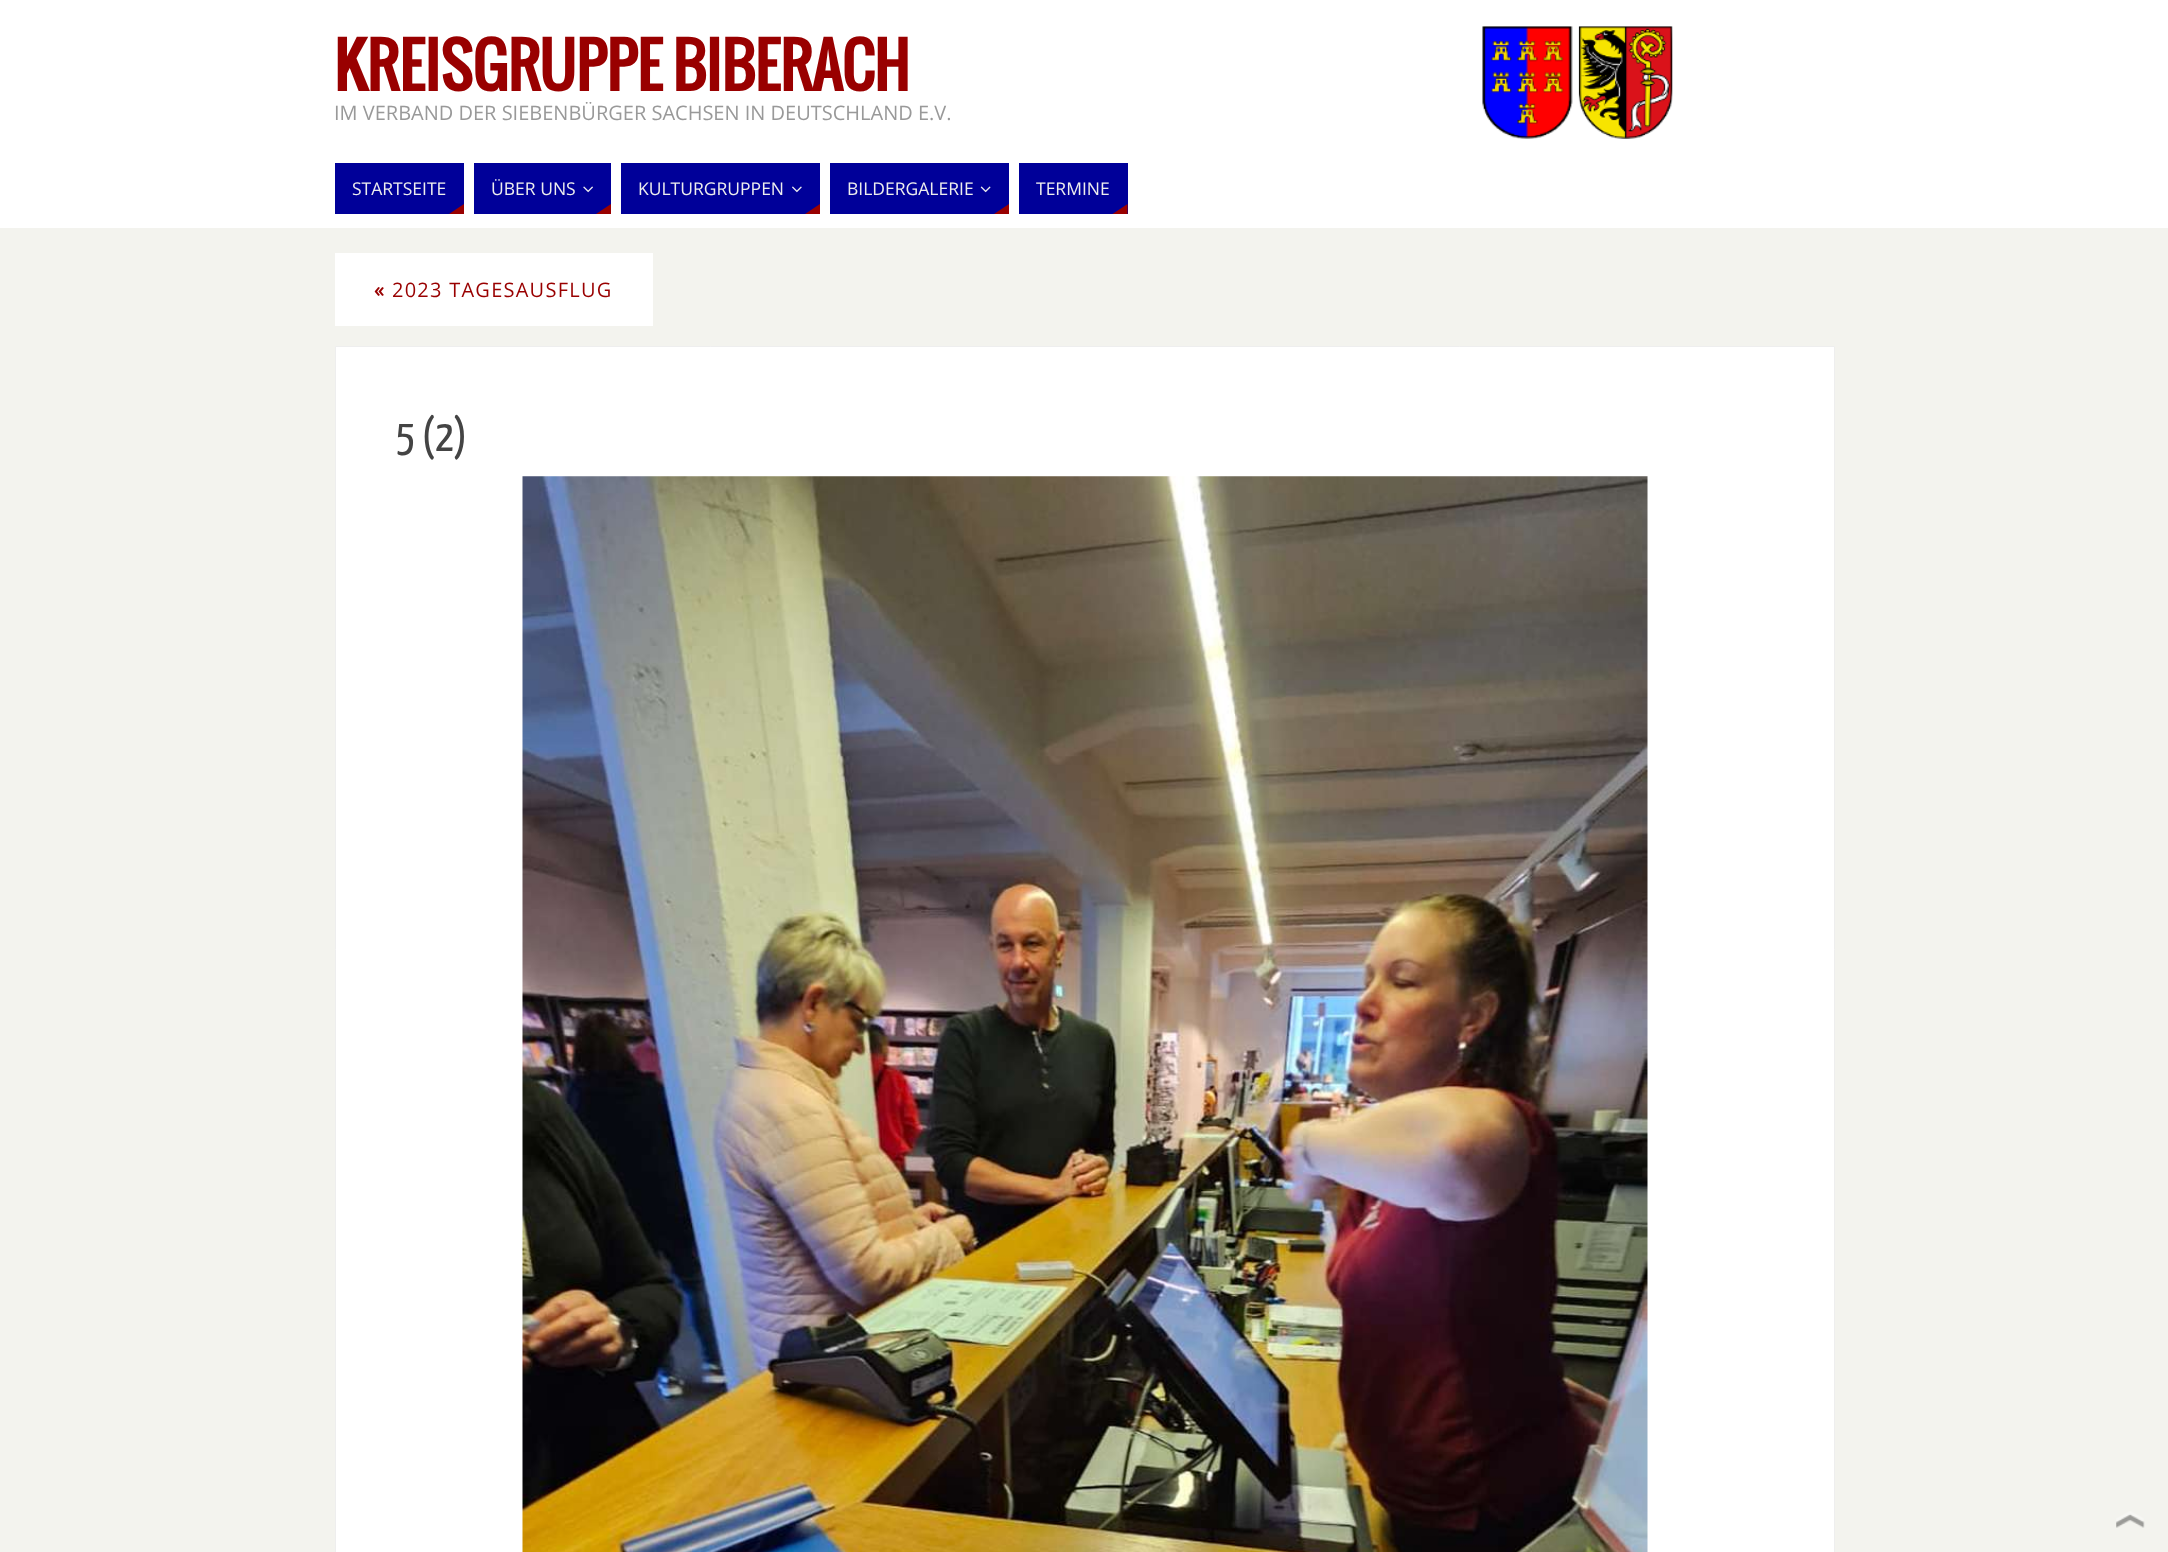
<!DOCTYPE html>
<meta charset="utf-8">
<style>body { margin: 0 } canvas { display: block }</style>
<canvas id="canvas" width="2168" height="1552"></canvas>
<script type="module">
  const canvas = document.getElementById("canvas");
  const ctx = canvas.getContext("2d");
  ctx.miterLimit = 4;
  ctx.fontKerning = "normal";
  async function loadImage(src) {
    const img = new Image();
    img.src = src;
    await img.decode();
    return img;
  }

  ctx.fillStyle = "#f3f3ee";
  ctx.fillRect(0, 0, 2168, 1552);
  ctx.fillStyle = "#ffffff";
  ctx.fillRect(0, 0, 2168, 228);
  ctx.font = "bold 60px Oswald";
  ctx.fillStyle = "#990000";
  ctx.fillText("KREISGRUPPE BIBERACH", 334, 91);
  ctx.font = "20px Open Sans";
  ctx.fillStyle = "#999999";
  ctx.fillText("IM VERBAND DER SIEBENBÜRGER SACHSEN IN DEUTSCHLAND E.V.", 334, 120);
  ctx.drawImage(await loadImage("img1.png"), 1482, 26, 91, 113);
  ctx.drawImage(await loadImage("img2.png"), 1578, 26, 95, 113);
  ctx.fillStyle = "#000099";
  ctx.fillRect(335, 163, 129, 51);
  ctx.font = "17.5px Open Sans";
  ctx.fillStyle = "#eeeeee";
  ctx.fillText("STARTSEITE", 352, 195);
  ctx.fillStyle = "#990000";
  ctx.beginPath();
  ctx.moveTo(464, 214);
  ctx.lineTo(449, 214);
  ctx.lineTo(464, 204);
  ctx.closePath();
  ctx.fill();
  ctx.fillStyle = "#000099";
  ctx.fillRect(474, 163, 137, 51);
  ctx.fillStyle = "#eeeeee";
  ctx.fillText("ÜBER UNS", 491, 195);
  ctx.drawImage(await loadImage("img3.png"), 583, 186, 10, 7);
  ctx.fillStyle = "#990000";
  ctx.beginPath();
  ctx.moveTo(611, 214);
  ctx.lineTo(596, 214);
  ctx.lineTo(611, 204);
  ctx.closePath();
  ctx.fill();
  ctx.fillStyle = "#000099";
  ctx.fillRect(621, 163, 199, 51);
  ctx.fillStyle = "#eeeeee";
  ctx.fillText("KULTURGRUPPEN", 638, 195);
  ctx.drawImage(await loadImage("img4.png"), 792, 186, 10, 7);
  ctx.fillStyle = "#990000";
  ctx.beginPath();
  ctx.moveTo(820, 214);
  ctx.lineTo(805, 214);
  ctx.lineTo(820, 204);
  ctx.closePath();
  ctx.fill();
  ctx.fillStyle = "#000099";
  ctx.fillRect(830, 163, 179, 51);
  ctx.fillStyle = "#eeeeee";
  ctx.fillText("BILDERGALERIE", 847, 195);
  ctx.drawImage(await loadImage("img5.png"), 980, 186, 11, 7);
  ctx.fillStyle = "#990000";
  ctx.beginPath();
  ctx.moveTo(1009, 214);
  ctx.lineTo(994, 214);
  ctx.lineTo(1009, 204);
  ctx.closePath();
  ctx.fill();
  ctx.fillStyle = "#000099";
  ctx.fillRect(1019, 163, 109, 51);
  ctx.fillStyle = "#eeeeee";
  ctx.fillText("TERMINE", 1036, 195);
  ctx.fillStyle = "#990000";
  ctx.beginPath();
  ctx.moveTo(1127.5, 214);
  ctx.lineTo(1112.5, 214);
  ctx.lineTo(1127.5, 204);
  ctx.closePath();
  ctx.fill();
  ctx.fillStyle = "#ffffff";
  ctx.fillRect(335, 253, 318, 73);
  ctx.letterSpacing = "1.25px";
  ctx.font = "bold 20px Open Sans";
  ctx.fillStyle = "#990000";
  ctx.fillText("«", 374, 297);
  ctx.font = "20px Open Sans";
  ctx.fillText("2023 TAGESAUSFLUG", 392, 297);
  ctx.fillStyle = "#ffffff";
  ctx.beginPath();
  ctx.rect(335.5, 346.5, 1499, 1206);
  ctx.fill();
  ctx.strokeStyle = "#eeeeee";
  ctx.stroke();
  ctx.letterSpacing = "0px";
  ctx.font = "45px Yanone Kaffeesatz";
  ctx.fillStyle = "#444444";
  ctx.fillText("5 (2)", 396, 451);
  ctx.drawImage(await loadImage("img6.png"), 522, 476, 1126, 1076);
  ctx.drawImage(await loadImage("img7.png"), 2116, 1511, 29, 17);
</script>
